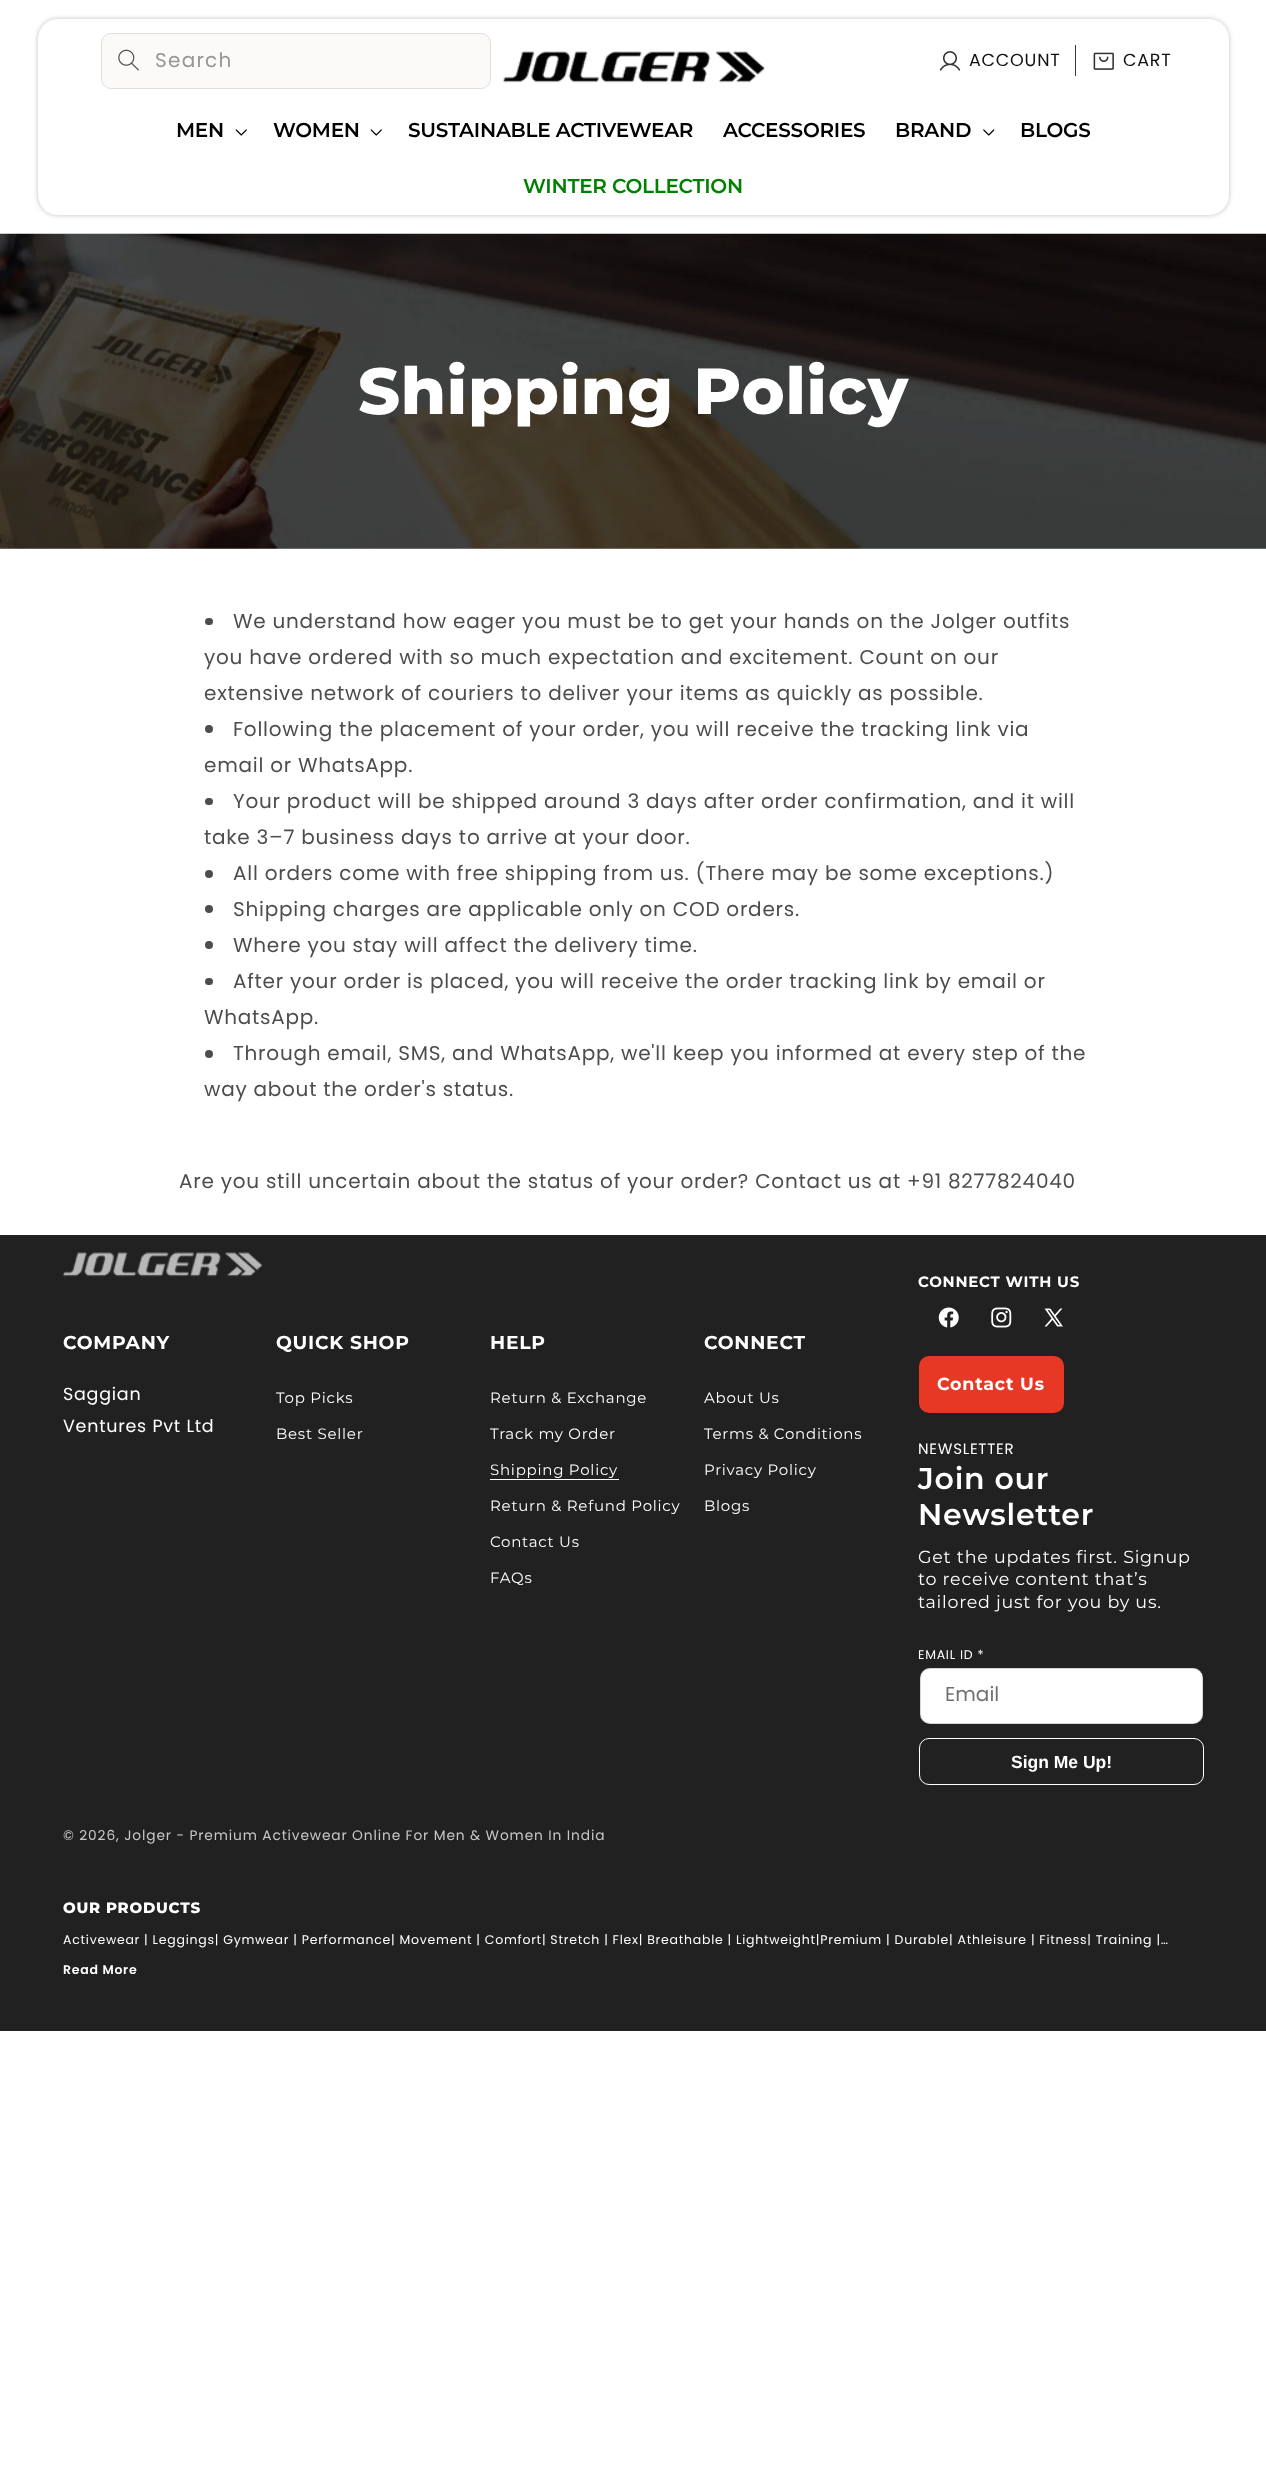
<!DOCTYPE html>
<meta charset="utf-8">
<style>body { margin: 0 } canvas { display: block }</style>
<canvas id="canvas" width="1266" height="2468"></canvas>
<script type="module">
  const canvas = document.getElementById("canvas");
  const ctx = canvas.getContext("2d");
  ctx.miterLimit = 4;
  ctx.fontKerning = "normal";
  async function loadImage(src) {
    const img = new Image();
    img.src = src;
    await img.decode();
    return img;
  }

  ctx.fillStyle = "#ffffff";
  ctx.fillRect(0, 0, 1266, 2468);
  ctx.fillStyle = "rgba(0, 0, 0, 0.25)";
  ctx.filter = "blur(2.5px)";
  ctx.beginPath();
  ctx.roundRect(38, 19, 1191, 196, 20);
  ctx.fill();
  ctx.filter = "none";
  ctx.fillStyle = "#ffffff";
  ctx.beginPath();
  ctx.roundRect(38, 19, 1191, 196, 20);
  ctx.fill();
  ctx.fillStyle = "#fbfaf8";
  ctx.beginPath();
  ctx.roundRect(101, 33, 390, 56, 10);
  ctx.fill();
  ctx.beginPath();
  ctx.roundRect(101.5, 33.5, 389, 55, 9.5);
  ctx.strokeStyle = "rgba(0, 0, 0, 0.11)";
  ctx.stroke();
  ctx.drawImage(await loadImage("img1.png"), 118, 49, 21, 22);
  ctx.letterSpacing = "1.25px";
  ctx.font = "20px Poppins";
  ctx.fillStyle = "#979695";
  ctx.fillText("Search", 155, 67);
  ctx.drawImage(await loadImage("img2.png"), 502, 51, 263, 32);
  ctx.drawImage(await loadImage("img3.png"), 939, 51, 22, 20);
  ctx.letterSpacing = "0.75px";
  ctx.font = "17.5px Poppins";
  ctx.fillStyle = "#121212";
  ctx.fillText("ACCOUNT", 969, 66);
  ctx.fillStyle = "#403434";
  ctx.fillRect(1075, 45, 1, 31);
  ctx.drawImage(await loadImage("img4.png"), 1093, 52, 21, 18);
  ctx.fillStyle = "#121212";
  ctx.fillText("CART", 1123, 66);
  ctx.letterSpacing = "-0.25px";
  ctx.font = "600 20px Montserrat";
  ctx.fillStyle = "#010000";
  ctx.fillText("MEN", 176, 137);
  ctx.drawImage(await loadImage("img5.png"), 235, 129, 12, 7);
  ctx.fillText("WOMEN", 273, 137);
  ctx.drawImage(await loadImage("img5.png"), 370, 129, 12, 7);
  ctx.fillText("SUSTAINABLE ACTIVEWEAR", 408, 137);
  ctx.fillText("ACCESSORIES", 723, 137);
  ctx.fillText("BRAND", 895, 137);
  ctx.drawImage(await loadImage("img6.png"), 983, 129, 12, 7);
  ctx.fillText("BLOGS", 1020, 137);
  ctx.fillStyle = "#008000";
  ctx.fillText("WINTER COLLECTION", 523, 193);
  ctx.drawImage(await loadImage("img7.png"), 0, 233, 1266, 316);
  ctx.letterSpacing = "0.75px";
  ctx.font = "800 65px Montserrat";
  ctx.fillStyle = "#ffffff";
  ctx.fillText("Shipping Policy", 358, 414);
  ctx.fillStyle = "#4d4d4d";
  ctx.beginPath();
  ctx.roundRect(205, 618, 8, 7, 3.5);
  ctx.fill();
  ctx.font = "20px Poppins";
  ctx.fillText("We understand how eager you must be to get your hands on the Jolger outfits", 233, 628);
  ctx.fillText("you have ordered with so much expectation and excitement. Count on our", 204, 664);
  ctx.fillText("extensive network of couriers to deliver your items as quickly as possible.", 204, 700);
  ctx.beginPath();
  ctx.arc(209, 729, 4, 0, Math.PI * 2);
  ctx.fill();
  ctx.fillText("Following the placement of your order, you will receive the tracking link via", 233, 736);
  ctx.fillText("email or WhatsApp.", 204, 772);
  ctx.beginPath();
  ctx.roundRect(205, 798, 8, 7, 3.5);
  ctx.fill();
  ctx.fillText("Your product will be shipped around 3 days after order confirmation, and it will", 233, 808);
  ctx.fillText("take 3–7 business days to arrive at your door.", 204, 844);
  ctx.beginPath();
  ctx.arc(209, 874, 4, 0, Math.PI * 2);
  ctx.fill();
  ctx.fillText("All orders come with free shipping from us. (There may be some exceptions.)", 233, 880);
  ctx.beginPath();
  ctx.arc(209, 909, 4, 0, Math.PI * 2);
  ctx.fill();
  ctx.fillText("Shipping charges are applicable only on COD orders.", 233, 916);
  ctx.beginPath();
  ctx.arc(209, 945, 4, 0, Math.PI * 2);
  ctx.fill();
  ctx.fillText("Where you stay will affect the delivery time.", 233, 952);
  ctx.beginPath();
  ctx.roundRect(205, 978, 8, 7, 3.5);
  ctx.fill();
  ctx.fillText("After your order is placed, you will receive the order tracking link by email or", 233, 988);
  ctx.fillText("WhatsApp.", 204, 1024);
  ctx.beginPath();
  ctx.arc(209, 1054, 4, 0, Math.PI * 2);
  ctx.fill();
  ctx.fillText("Through email, SMS, and WhatsApp, we'll keep you informed at every step of the", 233, 1060);
  ctx.fillText("way about the order's status.", 204, 1096);
  ctx.fillText("Are you still uncertain about the status of your order? Contact us at +91 8277824040", 179, 1188);
  ctx.fillStyle = "#212121";
  ctx.fillRect(0, 1235, 1266, 796);
  ctx.drawImage(await loadImage("img8.png"), 62, 1252, 201, 25);
  ctx.font = "bold 18.75px Montserrat";
  ctx.fillStyle = "#ffffff";
  ctx.fillText("COMPANY", 63, 1349);
  ctx.font = "17.5px Poppins";
  ctx.fillText("Saggian", 63, 1400);
  ctx.fillText("Ventures Pvt Ltd", 63, 1432);
  ctx.font = "bold 18.75px Montserrat";
  ctx.fillText("QUICK SHOP", 276, 1349);
  ctx.font = "15px Montserrat";
  ctx.fillText("Top Picks", 276, 1403);
  ctx.fillText("Best Seller", 276, 1439);
  ctx.font = "bold 18.75px Montserrat";
  ctx.fillText("HELP", 490, 1349);
  ctx.font = "15px Montserrat";
  ctx.fillText("Return & Exchange", 490, 1403);
  ctx.fillText("Track my Order", 490, 1439);
  ctx.fillText("Shipping Policy", 490, 1475);
  ctx.fillRect(490, 1479, 129, 1);
  ctx.fillText("Return & Refund Policy", 490, 1511);
  ctx.fillText("Contact Us", 490, 1547);
  ctx.fillText("FAQs", 490, 1583);
  ctx.font = "bold 18.75px Montserrat";
  ctx.fillText("CONNECT", 704, 1349);
  ctx.font = "15px Montserrat";
  ctx.fillText("About Us", 704, 1403);
  ctx.fillText("Terms & Conditions", 704, 1439);
  ctx.fillText("Privacy Policy", 704, 1475);
  ctx.fillText("Blogs", 704, 1511);
  ctx.font = "bold 15px Montserrat";
  ctx.fillText("CONNECT WITH US", 918, 1287);
  ctx.drawImage(await loadImage("img9.png"), 938, 1307, 21, 21);
  ctx.drawImage(await loadImage("img10.png"), 991, 1307, 21, 21);
  ctx.drawImage(await loadImage("img11.png"), 1044, 1308, 19, 19);
  ctx.fillStyle = "#e73725";
  ctx.beginPath();
  ctx.roundRect(919, 1356, 145, 57, 10);
  ctx.fill();
  ctx.font = "bold 17.5px Montserrat";
  ctx.fillStyle = "#ffffff";
  ctx.fillText("Contact Us", 937, 1390);
  ctx.font = "15px Poppins";
  ctx.fillText("NEWSLETTER", 918, 1454);
  ctx.font = "600 30px Montserrat";
  ctx.fillText("Join our", 918, 1489);
  ctx.fillText("Newsletter", 918, 1525);
  ctx.font = "17.5px Montserrat";
  ctx.fillText("Get the updates first. Signup", 918, 1563);
  ctx.fillText("to receive content that’s", 918, 1585);
  ctx.fillText("tailored just for you by us.", 918, 1608);
  ctx.font = "12.5px Poppins";
  ctx.fillText("EMAIL ID *", 918, 1659);
  ctx.beginPath();
  ctx.roundRect(920, 1668, 283, 56, 10);
  ctx.fill();
  ctx.beginPath();
  ctx.roundRect(920.5, 1668.5, 282, 55, 9.5);
  ctx.strokeStyle = "rgba(0, 0, 0, 0.16)";
  ctx.stroke();
  ctx.letterSpacing = "0px";
  ctx.font = "20px Poppins";
  ctx.fillStyle = "#717171";
  ctx.fillText("Email", 945, 1701);
  ctx.beginPath();
  ctx.roundRect(919.5, 1738.5, 284, 46, 9.5);
  ctx.strokeStyle = "#ffffff";
  ctx.stroke();
  ctx.font = "bold 17.5px Liberation Sans";
  ctx.fillStyle = "#ffffff";
  ctx.fillText("Sign Me Up!", 1011, 1768);
  ctx.letterSpacing = "0.88px";
  ctx.font = "13.75px Poppins";
  ctx.fillStyle = "#c8c8c8";
  ctx.fillText("© 2026, Jolger - Premium Activewear Online For Men & Women In India", 63, 1840);
  ctx.letterSpacing = "0.75px";
  ctx.font = "800 15px Montserrat";
  ctx.fillStyle = "#ffffff";
  ctx.fillText("OUR PRODUCTS", 63, 1913);
  ctx.font = "12.5px Poppins";
  ctx.fillText("Activewear | Leggings| Gymwear | Performance| Movement | Comfort| Stretch | Flex| Breathable | Lightweight|Premium | Durable| Athleisure | Fitness| Training |…", 63, 1944);
  ctx.font = "600 12.5px Poppins";
  ctx.fillText("Read More", 63, 1974);
</script>
